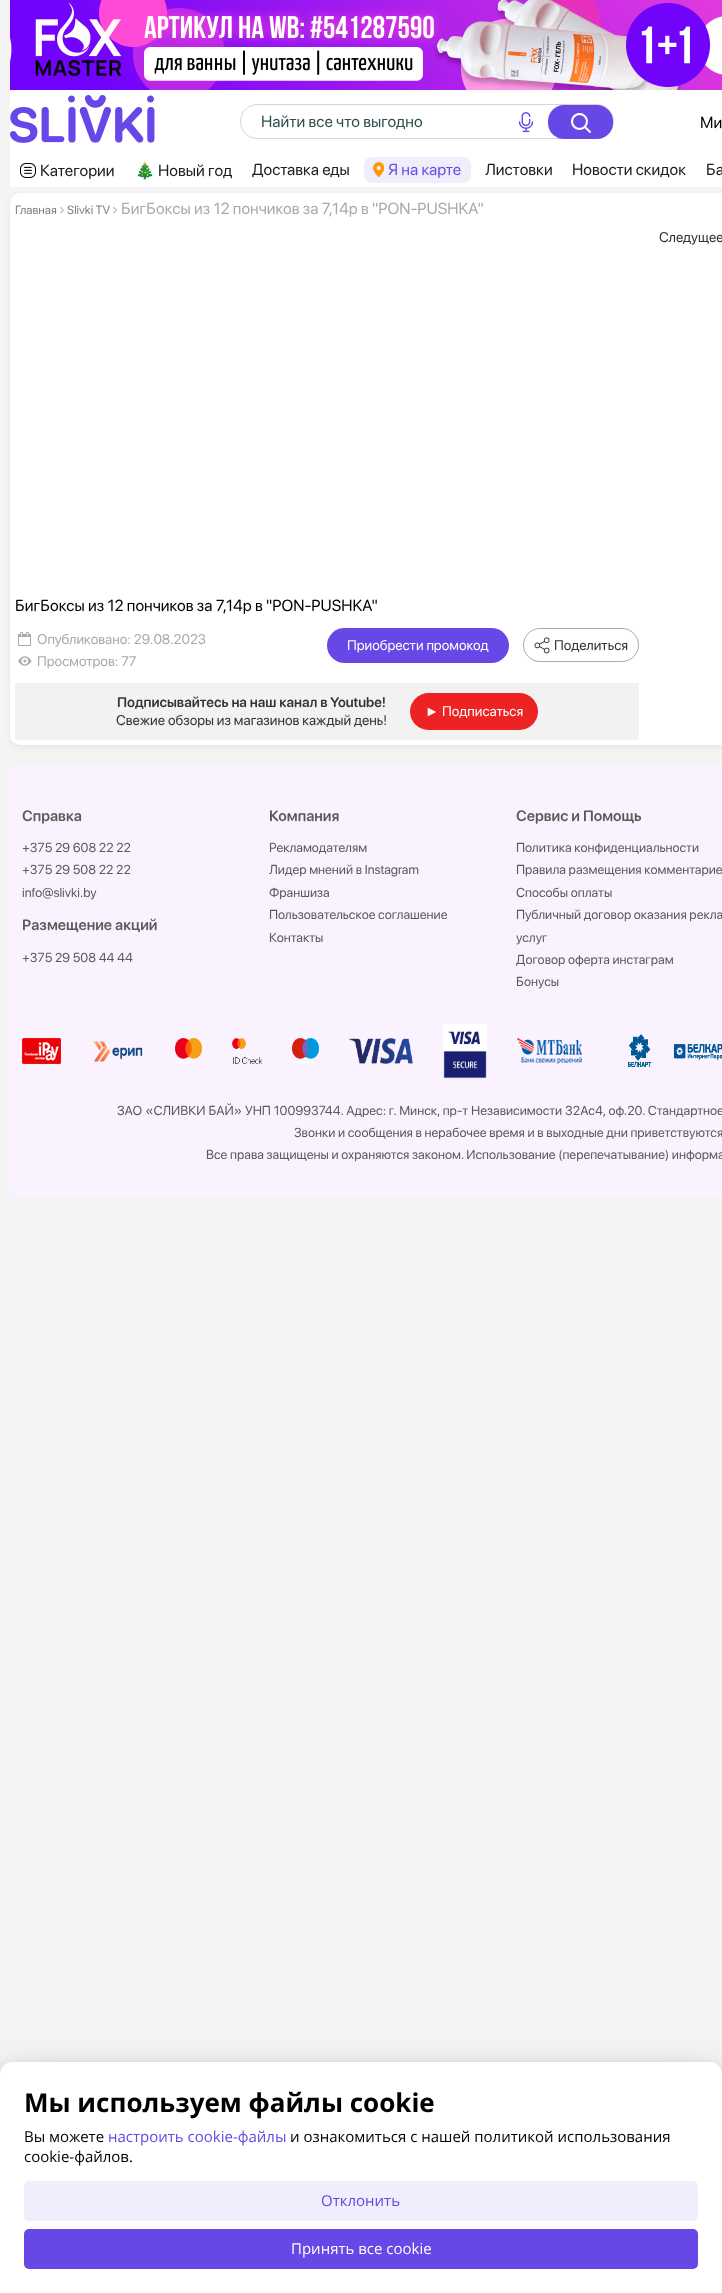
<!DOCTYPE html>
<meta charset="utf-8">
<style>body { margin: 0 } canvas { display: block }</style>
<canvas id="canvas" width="722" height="2293"></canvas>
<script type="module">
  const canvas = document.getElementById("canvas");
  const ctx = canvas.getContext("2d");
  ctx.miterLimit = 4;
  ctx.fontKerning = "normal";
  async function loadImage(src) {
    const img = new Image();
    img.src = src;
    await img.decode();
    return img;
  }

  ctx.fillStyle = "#f4f4f4";
  ctx.fillRect(0, 0, 722, 2293);
  ctx.drawImage(await loadImage("img1.png"), 10, 0, 712, 90);
  ctx.fillStyle = "rgba(0, 0, 0, 0.06)";
  ctx.filter = "blur(3px)";
  ctx.beginPath();
  ctx.roundRect(10, 195, 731, 552, 10);
  ctx.fill();
  ctx.filter = "none";
  ctx.fillStyle = "#ffffff";
  ctx.fillRect(10, 90, 712, 97);
  ctx.drawImage(await loadImage("img2.png"), 10, 95, 145, 48);
  ctx.beginPath();
  ctx.roundRect(240.5, 104.5, 373, 34, 17);
  ctx.strokeStyle = "#d5d5d5";
  ctx.stroke();
  ctx.font = "200 16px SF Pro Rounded";
  ctx.fillStyle = "#2f4f4f";
  ctx.fillText("Найти все что выгодно", 261, 127);
  ctx.drawImage(await loadImage("img3.png"), 518, 112, 16, 21);
  ctx.fillStyle = "#6747e5";
  ctx.beginPath();
  ctx.roundRect(548, 105, 65, 34, 16);
  ctx.fill();
  ctx.drawImage(await loadImage("img4.png"), 571, 113, 20, 20);
  ctx.fillStyle = "#000000";
  ctx.fillText("Ми", 700, 128);
  ctx.drawImage(await loadImage("img5.png"), 20, 163, 16, 15);
  ctx.fillStyle = "#202020";
  ctx.fillText("Категории", 40, 176);
  ctx.font = "16px Noto Color Emoji";
  ctx.fillText("🎄", 135, 176);
  ctx.font = "200 16px SF Pro Rounded";
  ctx.fillText("Новый год", 158, 176);
  ctx.fillText("Доставка еды", 252, 175);
  ctx.fillStyle = "#f0edfc";
  ctx.beginPath();
  ctx.roundRect(364, 157, 107, 26, 8);
  ctx.fill();
  ctx.drawImage(await loadImage("img6.png"), 373, 162, 11, 16);
  ctx.fillStyle = "#674ee1";
  ctx.fillText("Я на карте", 388, 175);
  ctx.fillStyle = "#202020";
  ctx.fillText("Листовки", 485, 175);
  ctx.fillText("Новости скидок", 572, 175);
  ctx.fillText("Ба", 706, 175);
  ctx.fillStyle = "#ffffff";
  ctx.beginPath();
  ctx.roundRect(10, 193, 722, 552, 10);
  ctx.fill();
  ctx.font = "200 12px SF Pro Rounded";
  ctx.fillStyle = "#808080";
  ctx.fillText("Главная", 15, 214);
  ctx.drawImage(await loadImage("img7.png"), 60, 206, 4, 8);
  ctx.fillText("Slivki TV", 67, 214);
  ctx.drawImage(await loadImage("img7.png"), 113, 206, 4, 8);
  ctx.font = "200 16px SF Pro Rounded";
  ctx.fillStyle = "#aaaaaa";
  ctx.fillText("БигБоксы из 12 пончиков за 7,14р в \"PON-PUSHKA\"", 121, 214);
  ctx.font = "200 14px SF Pro Rounded";
  ctx.fillStyle = "#333333";
  ctx.fillText("Следущее", 659, 242);
  ctx.font = "200 16px SF Pro Rounded";
  ctx.fillStyle = "#000000";
  ctx.fillText("БигБоксы из 12 пончиков за 7,14р в \"PON-PUSHKA\"", 15, 611);
  ctx.drawImage(await loadImage("img8.png"), 18, 632, 13, 14);
  ctx.font = "200 14px SF Pro Rounded";
  ctx.fillStyle = "#aaaaaa";
  ctx.fillText("Опубликовано: 29.08.2023", 37, 644);
  ctx.fillStyle = "#6747e5";
  ctx.beginPath();
  ctx.roundRect(327, 628, 182, 35, 17.5);
  ctx.fill();
  ctx.fillStyle = "#ffffff";
  ctx.fillText("Приобрести промокод", 347, 650);
  ctx.beginPath();
  ctx.roundRect(523.5, 628.5, 115, 33, 16.5);
  ctx.strokeStyle = "#aaaaaa";
  ctx.stroke();
  ctx.drawImage(await loadImage("img9.png"), 534, 637, 16, 17);
  ctx.fillStyle = "#333333";
  ctx.fillText("Поделиться", 554, 650);
  ctx.drawImage(await loadImage("img10.png"), 18, 656, 14, 10);
  ctx.fillStyle = "#aaaaaa";
  ctx.fillText("Просмотров: 77", 37, 666);
  ctx.fillStyle = "#f2f2f2";
  ctx.fillRect(15, 683, 624, 57);
  ctx.font = "200 14px 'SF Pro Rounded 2'";
  ctx.fillStyle = "#333333";
  ctx.fillText("Подписывайтесь на наш канал в Youtube!", 117, 707);
  ctx.font = "200 14px SF Pro Rounded";
  ctx.fillText("Свежие обзоры из магазинов каждый день!", 116, 725);
  ctx.fillStyle = "#ed2223";
  ctx.beginPath();
  ctx.roundRect(410, 693, 128, 37, 18.5);
  ctx.fill();
  ctx.font = "14px Liberation Serif";
  ctx.fillStyle = "#ffffff";
  ctx.fillText("►", 425, 716);
  ctx.font = "200 14px SF Pro Rounded";
  ctx.fillText("Подписаться", 442, 716);
  ctx.fillStyle = "#faf3ff";
  ctx.fillRect(10, 765, 712, 432);
  ctx.font = "200 15px 'SF Pro Rounded 2'";
  ctx.fillStyle = "#5a5a5a";
  ctx.fillText("Справка", 22, 821);
  ctx.font = "200 13px SF Pro Rounded";
  ctx.fillText("+375 29 608 22 22", 22, 852);
  ctx.fillText("+375 29 508 22 22", 22, 874);
  ctx.fillText("info@slivki.by", 22, 897);
  ctx.font = "200 15px 'SF Pro Rounded 2'";
  ctx.fillText("Размещение акций", 22, 930);
  ctx.font = "200 13px SF Pro Rounded";
  ctx.fillText("+375 29 508 44 44", 22, 962);
  ctx.font = "200 15px 'SF Pro Rounded 2'";
  ctx.fillText("Компания", 269, 821);
  ctx.font = "200 13px SF Pro Rounded";
  ctx.fillText("Рекламодателям", 269, 852);
  ctx.fillText("Лидер мнений в Instagram", 269, 874);
  ctx.fillText("Франшиза", 269, 897);
  ctx.fillText("Пользовательское соглашение", 269, 919);
  ctx.fillText("Контакты", 269, 942);
  ctx.font = "200 15px 'SF Pro Rounded 2'";
  ctx.fillText("Сервис и Помощь", 516, 821);
  ctx.font = "200 13px SF Pro Rounded";
  ctx.fillText("Политика конфиденциальности", 516, 852);
  ctx.fillText("Правила размещения комментарие", 516, 874);
  ctx.fillText("Способы оплаты", 516, 897);
  ctx.fillText("Публичный договор оказания рекла", 516, 919);
  ctx.fillText("услуг", 516, 942);
  ctx.fillText("Договор оферта инстаграм", 516, 964);
  ctx.fillText("Бонусы", 516, 986);
  ctx.drawImage(await loadImage("img11.png"), 22, 1038, 39, 26);
  ctx.drawImage(await loadImage("img12.png"), 93, 1040, 50, 23);
  ctx.drawImage(await loadImage("img13.png"), 175, 1038, 27, 26);
  ctx.drawImage(await loadImage("img14.png"), 232, 1038, 30, 26);
  ctx.drawImage(await loadImage("img15.png"), 292, 1038, 27, 26);
  ctx.drawImage(await loadImage("img16.png"), 349, 1038, 64, 26);
  ctx.drawImage(await loadImage("img17.png"), 443, 1024, 44, 55);
  ctx.drawImage(await loadImage("img18.png"), 517, 1038, 65, 26);
  ctx.drawImage(await loadImage("img19.png"), 628, 1034, 94, 33);
  ctx.wordSpacing = "0.25px";
  ctx.fillText("ЗАО «СЛИВКИ БАЙ» УНП 100993744. Адрес: г. Минск, пр-т Независимости 32Ас4, оф.20. Стандартное", 117, 1115);
  ctx.wordSpacing = "0px";
  ctx.fillText("Звонки и сообщения в нерабочее время и в выходные дни приветствуются", 294, 1137);
  ctx.fillText("Все права защищены и охраняются законом. Использование (перепечатывание) информа", 206, 1159);
  ctx.fillStyle = "rgba(0, 0, 0, 0.12)";
  ctx.filter = "blur(6px)";
  ctx.beginPath();
  ctx.roundRect(0, 2066, 722, 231, 12);
  ctx.fill();
  ctx.filter = "none";
  ctx.fillStyle = "rgba(0, 0, 0, 0.32)";
  ctx.filter = "blur(24px)";
  ctx.beginPath();
  ctx.roundRect(0, 2086, 722, 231, 12);
  ctx.fill();
  ctx.filter = "none";
  ctx.fillStyle = "#ffffff";
  ctx.beginPath();
  ctx.roundRect(0, 2062, 722, 231, [12, 12, 0, 0]);
  ctx.fill();
  ctx.font = "bold 26px Open Sans";
  ctx.fillStyle = "#000000";
  ctx.fillText("Мы используем файлы cookie", 24, 2112);
  ctx.font = "15px Open Sans";
  ctx.fillText("Вы можете", 24, 2142);
  ctx.fillStyle = "#6747e5";
  ctx.fillText("настроить cookie-файлы", 108, 2142);
  ctx.fillStyle = "#000000";
  ctx.fillText("и ознакомиться с нашей политикой использования", 290, 2142);
  ctx.fillText("cookie-файлов.", 24, 2162);
  ctx.fillStyle = "#f0edfc";
  ctx.beginPath();
  ctx.roundRect(24, 2181, 674, 40, 5);
  ctx.fill();
  ctx.fillStyle = "#6747e5";
  ctx.fillText("Отклонить", 321, 2206);
  ctx.beginPath();
  ctx.roundRect(24, 2229, 674, 40, 5);
  ctx.fill();
  ctx.fillStyle = "#ffffff";
  ctx.fillText("Принять все cookie", 291, 2254);
</script>
